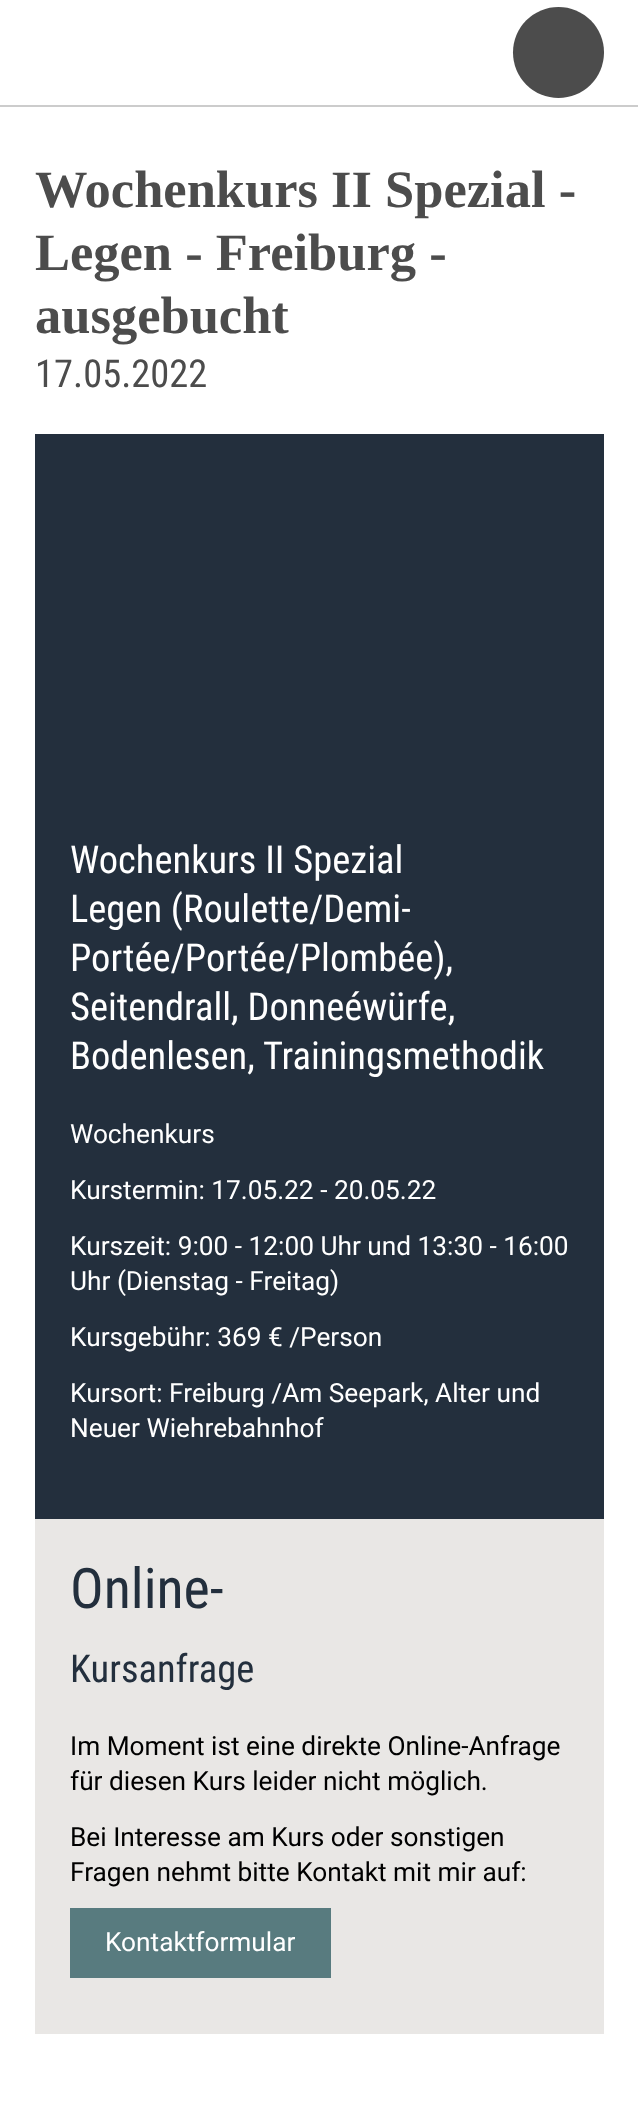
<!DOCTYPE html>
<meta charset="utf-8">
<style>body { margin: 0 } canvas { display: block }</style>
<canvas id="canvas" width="638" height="2106"></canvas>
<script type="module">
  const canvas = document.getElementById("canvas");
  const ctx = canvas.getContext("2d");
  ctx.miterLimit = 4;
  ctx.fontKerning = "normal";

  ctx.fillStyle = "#ffffff";
  ctx.fillRect(0, 0, 638, 2106);
  ctx.fillStyle = "#cccccc";
  ctx.fillRect(0, 105, 638, 2);
  ctx.fillStyle = "#4c4c4c";
  ctx.beginPath();
  ctx.arc(558.5, 52.5, 45.5, 0, Math.PI * 2);
  ctx.fill();
  ctx.font = "bold 52.5px Liberation Serif";
  ctx.fillText("Wochenkurs II Spezial -", 35, 207);
  ctx.fillText("Legen - Freiburg -", 35, 270);
  ctx.fillText("ausgebucht", 35, 333);
  ctx.font = "38.5px Roboto Condensed";
  ctx.fillText("17.05.2022", 35, 387);
  ctx.fillStyle = "#232f3d";
  ctx.fillRect(35, 434, 569, 1085);
  ctx.fillStyle = "#ffffff";
  ctx.fillText("Wochenkurs II Spezial", 70, 873);
  ctx.fillText("Legen (Roulette/Demi-", 70, 922);
  ctx.fillText("Portée/Portée/Plombée),", 70, 971);
  ctx.fillText("Seitendrall, Donneéwürfe,", 70, 1020);
  ctx.fillText("Bodenlesen, Trainingsmethodik", 70, 1069);
  ctx.font = "26.25px Roboto";
  ctx.fillText("Wochenkurs", 70, 1143);
  ctx.fillText("Kurstermin: 17.05.22 - 20.05.22", 70, 1199);
  ctx.fillText("Kurszeit: 9:00 - 12:00 Uhr und 13:30 - 16:00", 70, 1255);
  ctx.fillText("Uhr (Dienstag - Freitag)", 70, 1290);
  ctx.fillText("Kursgebühr: 369 € /Person", 70, 1346);
  ctx.fillText("Kursort: Freiburg /Am Seepark, Alter und", 70, 1402);
  ctx.fillText("Neuer Wiehrebahnhof", 70, 1437);
  ctx.fillStyle = "#e9e7e5";
  ctx.fillRect(35, 1519, 569, 515);
  ctx.font = "56px Roboto Condensed";
  ctx.fillStyle = "#232f3d";
  ctx.fillText("Online-", 70, 1608);
  ctx.font = "38.5px Roboto Condensed";
  ctx.fillText("Kursanfrage", 70, 1682);
  ctx.font = "26.25px Roboto";
  ctx.fillStyle = "#000000";
  ctx.fillText("Im Moment ist eine direkte Online-Anfrage", 70, 1755);
  ctx.fillText("für diesen Kurs leider nicht möglich.", 70, 1790);
  ctx.fillText("Bei Interesse am Kurs oder sonstigen", 70, 1846);
  ctx.fillText("Fragen nehmt bitte Kontakt mit mir auf:", 70, 1881);
  ctx.fillStyle = "#587b7f";
  ctx.fillRect(70, 1908, 261, 70);
  ctx.fillStyle = "#ffffff";
  ctx.fillText("Kontaktformular", 105, 1951);
</script>
